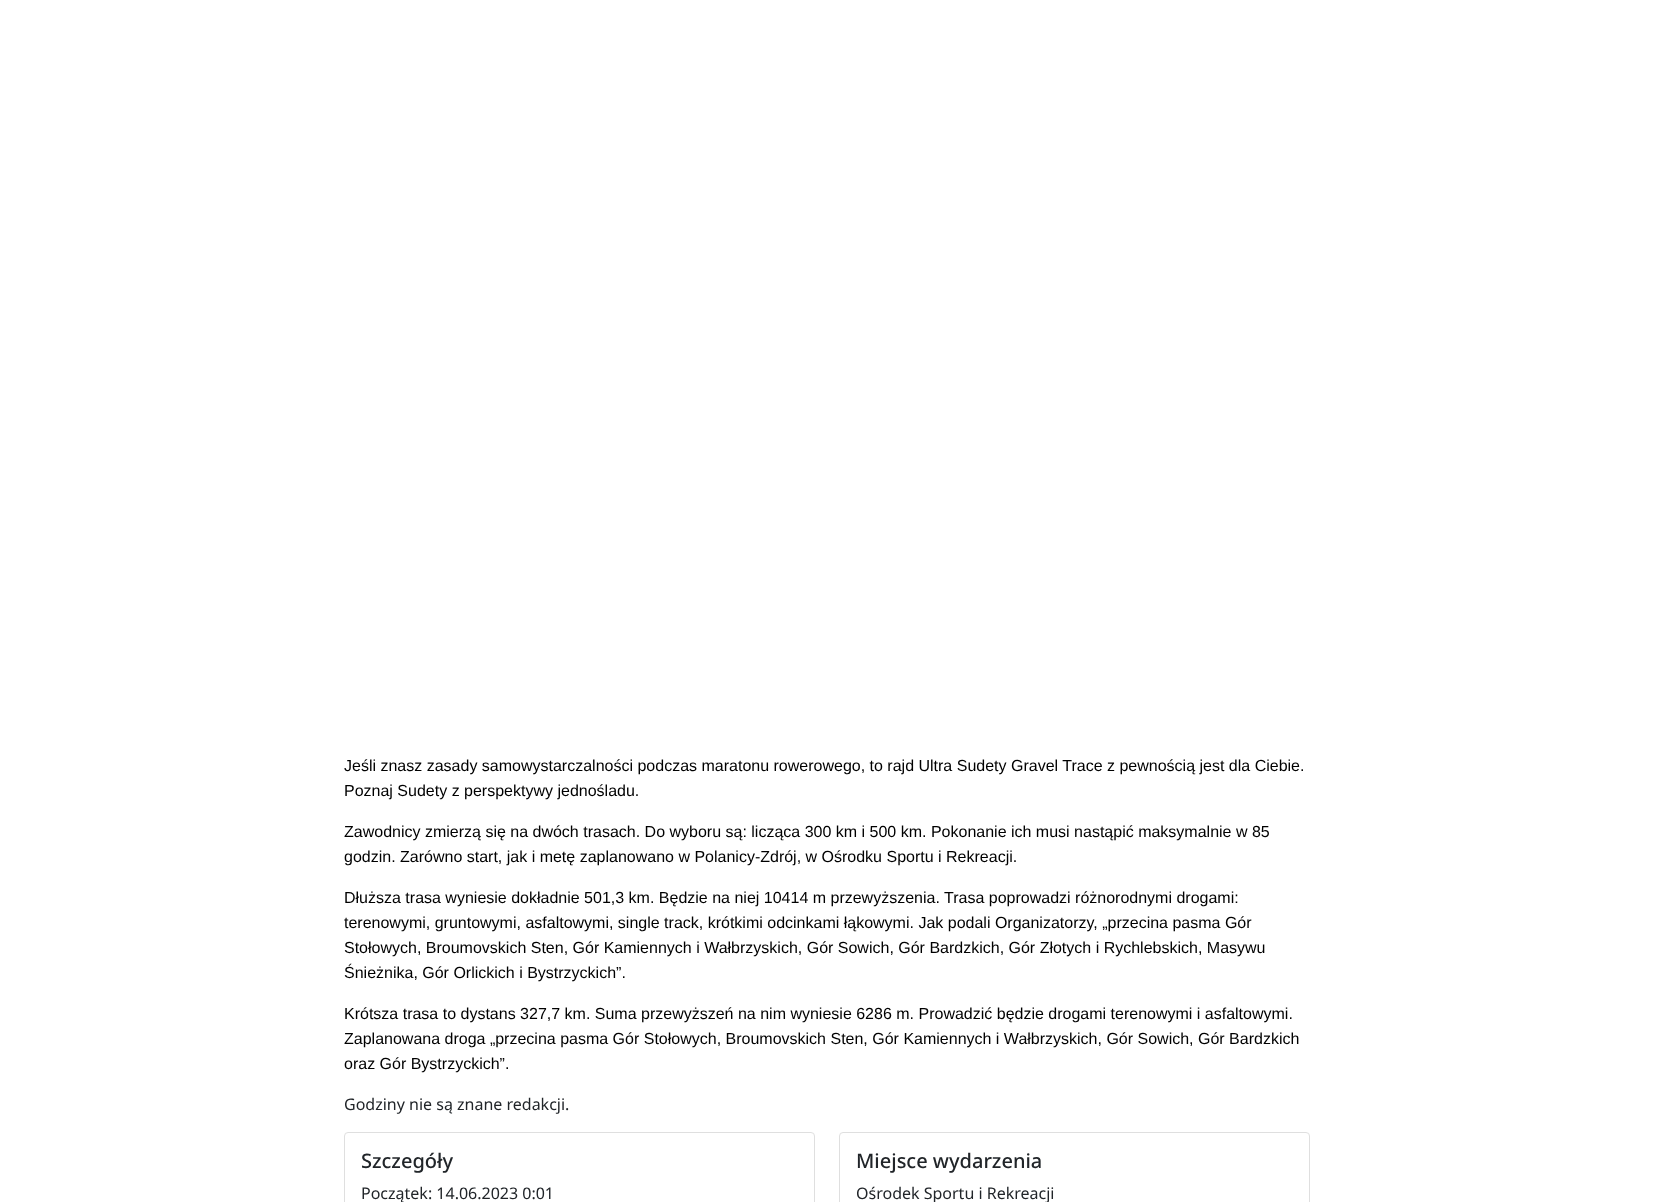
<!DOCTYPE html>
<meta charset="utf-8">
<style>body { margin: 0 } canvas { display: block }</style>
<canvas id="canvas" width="1654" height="1202"></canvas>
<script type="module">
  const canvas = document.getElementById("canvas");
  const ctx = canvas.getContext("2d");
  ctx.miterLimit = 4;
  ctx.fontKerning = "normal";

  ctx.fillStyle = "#ffffff";
  ctx.fillRect(0, 0, 1654, 1202);
  ctx.font = "16px Liberation Sans";
  ctx.fillStyle = "#000000";
  ctx.fillText("Jeśli znasz zasady samowystarczalności podczas maratonu rowerowego, to rajd Ultra Sudety Gravel Trace z pewnością jest dla Ciebie.", 344, 771);
  ctx.fillText("Poznaj Sudety z perspektywy jednośladu.", 344, 796);
  ctx.fillText("Zawodnicy zmierzą się na dwóch trasach. Do wyboru są: licząca 300 km i 500 km. Pokonanie ich musi nastąpić maksymalnie w 85", 344, 837);
  ctx.fillText("godzin. Zarówno start, jak i metę zaplanowano w Polanicy-Zdrój, w Ośrodku Sportu i Rekreacji.", 344, 862);
  ctx.fillText("Dłuższa trasa wyniesie dokładnie 501,3 km. Będzie na niej 10414 m przewyższenia. Trasa poprowadzi różnorodnymi drogami:", 344, 903);
  ctx.fillText("terenowymi, gruntowymi, asfaltowymi, single track, krótkimi odcinkami łąkowymi. Jak podali Organizatorzy, „przecina pasma Gór", 344, 928);
  ctx.fillText("Stołowych, Broumovskich Sten, Gór Kamiennych i Wałbrzyskich, Gór Sowich, Gór Bardzkich, Gór Złotych i Rychlebskich, Masywu", 344, 953);
  ctx.fillText("Śnieżnika, Gór Orlickich i Bystrzyckich”.", 344, 978);
  ctx.fillText("Krótsza trasa to dystans 327,7 km. Suma przewyższeń na nim wyniesie 6286 m. Prowadzić będzie drogami terenowymi i asfaltowymi.", 344, 1019);
  ctx.fillText("Zaplanowana droga „przecina pasma Gór Stołowych, Broumovskich Sten, Gór Kamiennych i Wałbrzyskich, Gór Sowich, Gór Bardzkich", 344, 1044);
  ctx.fillText("oraz Gór Bystrzyckich”.", 344, 1069);
  ctx.font = "16px Noto Sans";
  ctx.fillStyle = "#212529";
  ctx.fillText("Godziny nie są znane redakcji.", 344, 1110);
  ctx.beginPath();
  ctx.roundRect(344.5, 1132.5, 470, 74, 3.5);
  ctx.strokeStyle = "#dfdfdf";
  ctx.stroke();
  ctx.font = "500 20px Noto Sans";
  ctx.fillText("Szczegóły", 361, 1168);
  ctx.font = "16px Noto Sans";
  ctx.fillText("Początek: 14.06.2023 0:01", 361, 1199);
  ctx.beginPath();
  ctx.roundRect(839.5, 1132.5, 470, 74, 3.5);
  ctx.stroke();
  ctx.font = "500 20px Noto Sans";
  ctx.fillText("Miejsce wydarzenia", 856, 1168);
  ctx.font = "16px Noto Sans";
  ctx.fillText("Ośrodek Sportu i Rekreacji", 856, 1199);
</script>
